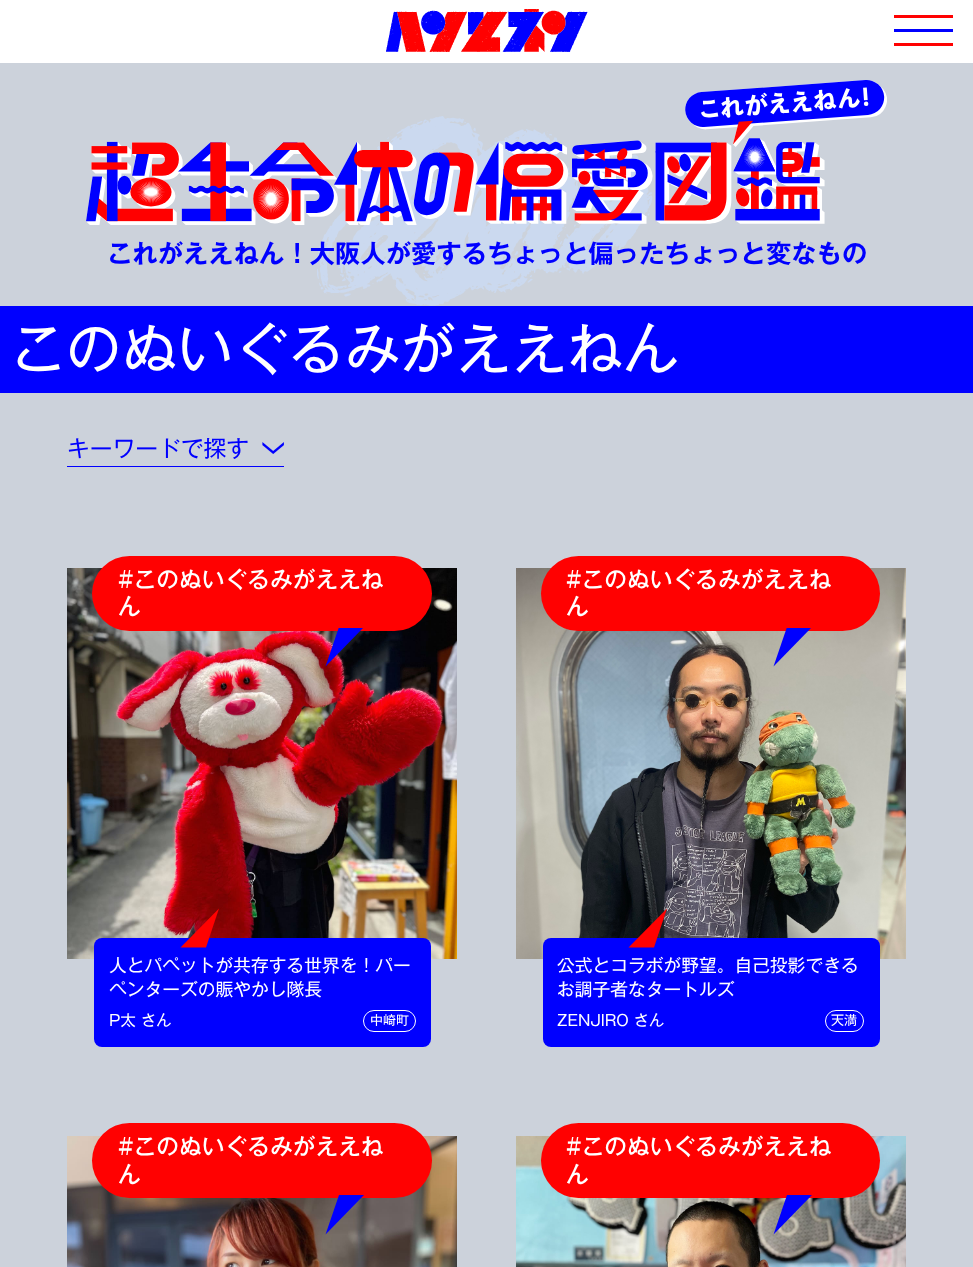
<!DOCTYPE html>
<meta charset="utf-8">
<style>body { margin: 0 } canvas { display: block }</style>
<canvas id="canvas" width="973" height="1267"></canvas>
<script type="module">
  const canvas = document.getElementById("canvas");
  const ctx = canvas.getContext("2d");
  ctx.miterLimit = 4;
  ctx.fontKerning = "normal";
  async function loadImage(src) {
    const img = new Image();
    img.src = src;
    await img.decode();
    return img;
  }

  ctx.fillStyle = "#ccd2db";
  ctx.fillRect(0, 0, 973, 1267);
  ctx.fillStyle = "#ffffff";
  ctx.fillRect(0, 0, 973, 63);
  ctx.drawImage(await loadImage("img1.png"), 386, 9, 202, 43);
  ctx.fillStyle = "#ff0101";
  ctx.fillRect(894, 15, 59, 3);
  ctx.fillStyle = "#0000ff";
  ctx.fillRect(894, 29, 59, 3);
  ctx.fillStyle = "#ff0101";
  ctx.fillRect(894, 43, 59, 3);
  ctx.drawImage(await loadImage("img3.png"), 317, 116, 339, 190);
  ctx.drawImage(await loadImage("img2.png"), 86, 80, 801, 145);
  ctx.font = "600 25.35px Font";
  ctx.fillStyle = "#0000ff";
  ctx.fillText("これがええねん！大阪人が愛するちょっと偏ったちょっと変なもの", 107, 263);
  ctx.fillRect(0, 306, 973, 87);
  ctx.font = "55.75px Font";
  ctx.fillStyle = "#ffffff";
  ctx.fillText("このぬいぐるみがええねん", 10, 370);
  ctx.fillStyle = "#0000ff";
  ctx.fillRect(67, 466, 217, 1);
  ctx.font = "22.75px Font";
  ctx.fillText("キーワードで探す", 67, 457);
  ctx.drawImage(await loadImage("img4.png"), 262, 442, 22, 12);
  ctx.drawImage(await loadImage("img5.png"), 67, 568, 390, 391);
  ctx.fillStyle = "#ff0101";
  ctx.beginPath();
  ctx.roundRect(92, 556, 340, 75, 37.5);
  ctx.fill();
  ctx.font = "500 22.75px Font";
  ctx.fillStyle = "#ffffff";
  ctx.fillText("#このぬいぐるみがええね", 118, 588);
  ctx.fillText("ん", 118, 615);
  ctx.save();
  ctx.beginPath();
  ctx.rect(325, 628, 39, 39);
  ctx.clip();
  ctx.fillStyle = "#0000ff";
  ctx.beginPath();
  ctx.moveTo(339, 627);
  ctx.lineTo(364, 627);
  ctx.lineTo(325.5, 666.5);
  ctx.closePath();
  ctx.fill();
  ctx.restore();
  ctx.fillStyle = "#0000ff";
  ctx.beginPath();
  ctx.roundRect(94, 938, 337, 109, 8);
  ctx.fill();
  ctx.fillStyle = "#ff0101";
  ctx.beginPath();
  ctx.moveTo(206, 947.5);
  ctx.lineTo(180.5, 947.5);
  ctx.lineTo(219, 908.5);
  ctx.closePath();
  ctx.fill();
  ctx.font = "17.75px Font";
  ctx.fillStyle = "#ffffff";
  ctx.fillText("人とパペットが共存する世界を！パー", 109, 972);
  ctx.fillText("ペンターズの賑やかし隊長", 109, 996);
  ctx.font = "15.25px Font";
  ctx.fillText("P太 さん", 109, 1026);
  ctx.beginPath();
  ctx.roundRect(363.5, 1010.5, 52, 21, 10.5);
  ctx.strokeStyle = "#ffffff";
  ctx.stroke();
  ctx.font = "13px Font";
  ctx.fillText("中崎町", 370, 1025);
  ctx.drawImage(await loadImage("img6.png"), 516, 568, 390, 391);
  ctx.fillStyle = "#ff0101";
  ctx.beginPath();
  ctx.roundRect(541, 556, 339, 75, 37.5);
  ctx.fill();
  ctx.font = "500 22.75px Font";
  ctx.fillStyle = "#ffffff";
  ctx.fillText("#このぬいぐるみがええね", 566, 588);
  ctx.fillText("ん", 566, 615);
  ctx.save();
  ctx.beginPath();
  ctx.rect(773, 628, 39, 39);
  ctx.clip();
  ctx.fillStyle = "#0000ff";
  ctx.beginPath();
  ctx.moveTo(787, 627);
  ctx.lineTo(812, 627);
  ctx.lineTo(773.5, 666.5);
  ctx.closePath();
  ctx.fill();
  ctx.restore();
  ctx.fillStyle = "#0000ff";
  ctx.beginPath();
  ctx.roundRect(543, 938, 337, 109, 8);
  ctx.fill();
  ctx.fillStyle = "#ff0101";
  ctx.beginPath();
  ctx.moveTo(654, 947.5);
  ctx.lineTo(628.5, 947.5);
  ctx.lineTo(667, 908.5);
  ctx.closePath();
  ctx.fill();
  ctx.font = "17.75px Font";
  ctx.fillStyle = "#ffffff";
  ctx.fillText("公式とコラボが野望。自己投影できる", 557, 972);
  ctx.fillText("お調子者なタートルズ", 557, 996);
  ctx.font = "15.25px Font";
  ctx.fillText("ZENJIRO さん", 557, 1026);
  ctx.beginPath();
  ctx.roundRect(825.5, 1010.5, 38, 21, 10.5);
  ctx.stroke();
  ctx.font = "13px Font";
  ctx.fillText("天満", 831, 1025);
  ctx.drawImage(await loadImage("img7.png"), 67, 1136, 390, 131);
  ctx.fillStyle = "#ff0101";
  ctx.beginPath();
  ctx.roundRect(92, 1123, 340, 75, 37.5);
  ctx.fill();
  ctx.font = "500 22.75px Font";
  ctx.fillStyle = "#ffffff";
  ctx.fillText("#このぬいぐるみがええね", 118, 1155);
  ctx.fillText("ん", 118, 1183);
  ctx.fillStyle = "#0000ff";
  ctx.beginPath();
  ctx.moveTo(339, 1195);
  ctx.lineTo(364, 1195);
  ctx.lineTo(325.5, 1234.5);
  ctx.closePath();
  ctx.fill();
  ctx.drawImage(await loadImage("img8.png"), 516, 1136, 390, 131);
  ctx.fillStyle = "#ff0101";
  ctx.beginPath();
  ctx.roundRect(541, 1123, 339, 75, 37.5);
  ctx.fill();
  ctx.fillStyle = "#ffffff";
  ctx.fillText("#このぬいぐるみがええね", 566, 1155);
  ctx.fillText("ん", 566, 1183);
  ctx.fillStyle = "#0000ff";
  ctx.beginPath();
  ctx.moveTo(787, 1195);
  ctx.lineTo(812, 1195);
  ctx.lineTo(773.5, 1234.5);
  ctx.closePath();
  ctx.fill();
</script>
